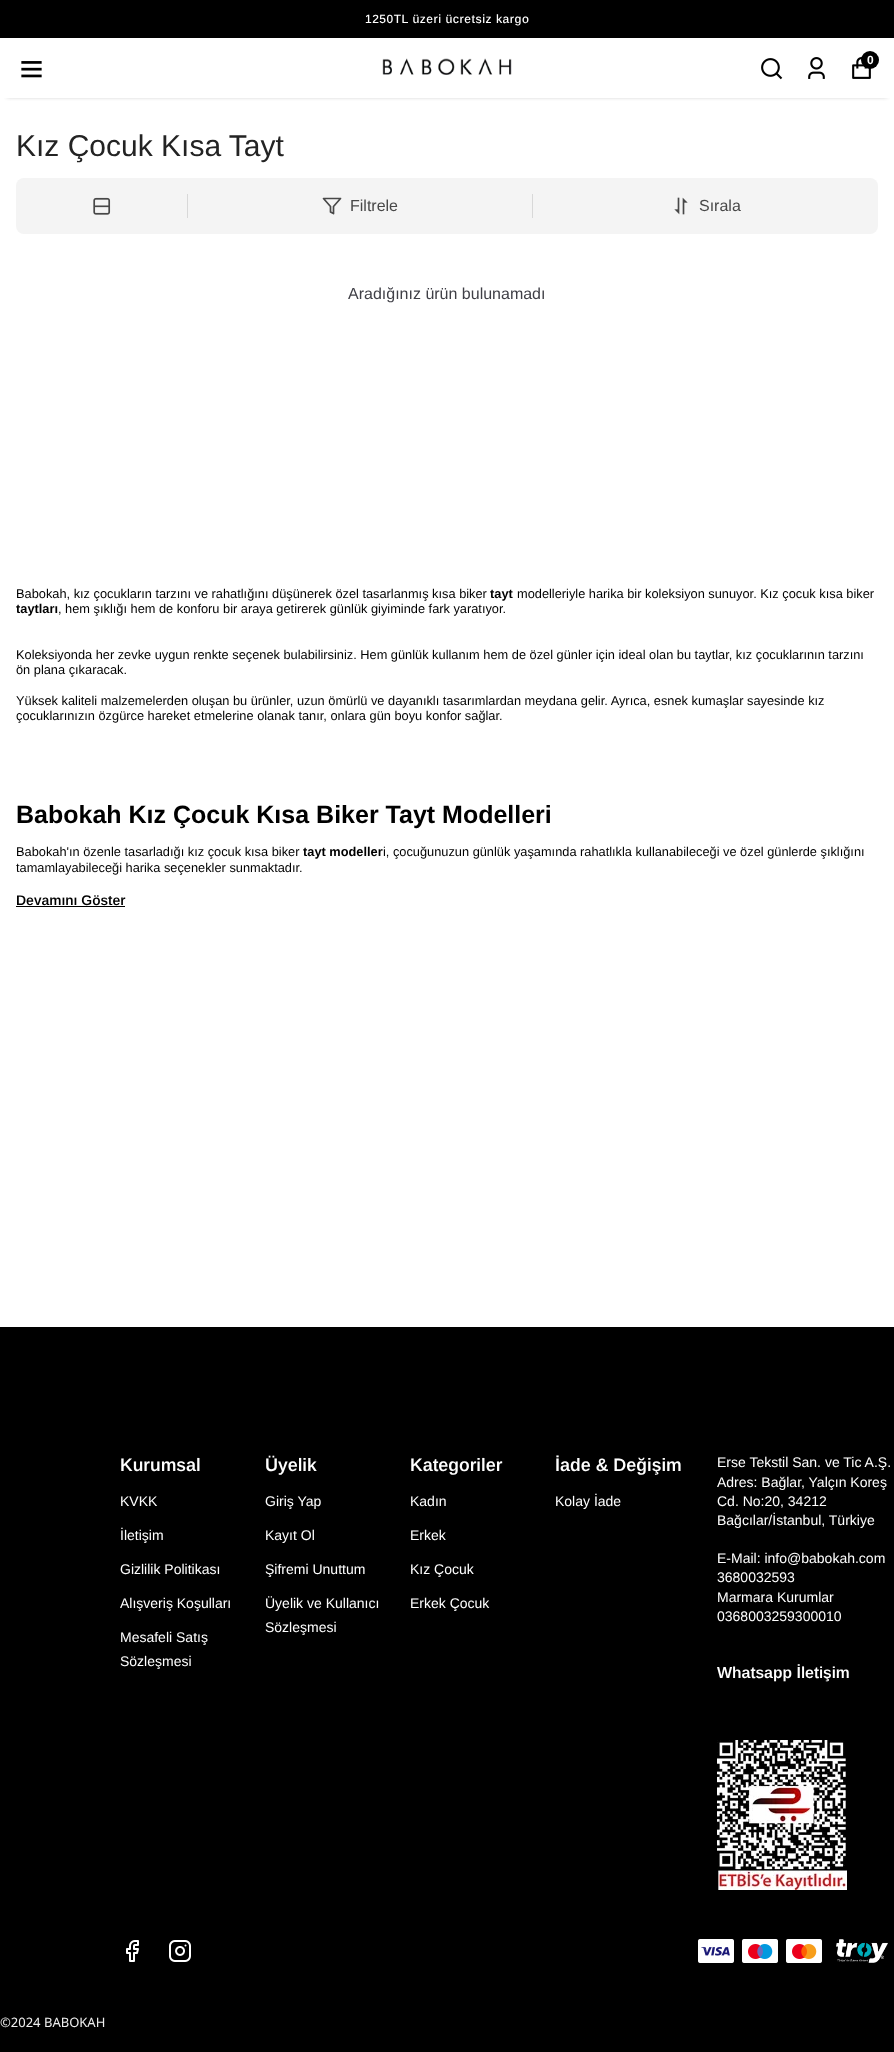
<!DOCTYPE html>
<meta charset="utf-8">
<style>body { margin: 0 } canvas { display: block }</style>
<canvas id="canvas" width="894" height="2052"></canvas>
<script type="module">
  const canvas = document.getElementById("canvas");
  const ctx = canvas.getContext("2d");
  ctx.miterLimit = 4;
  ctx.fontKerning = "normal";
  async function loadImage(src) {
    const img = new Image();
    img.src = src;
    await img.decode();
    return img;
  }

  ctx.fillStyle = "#ffffff";
  ctx.fillRect(0, 0, 894, 2052);
  ctx.fillStyle = "#000000";
  ctx.fillRect(0, 0, 894, 38);
  ctx.letterSpacing = "0.5px";
  ctx.font = "500 12px Arimo";
  ctx.fillStyle = "#ffffff";
  ctx.fillText("1250TL üzeri ücretsiz kargo", 365, 23);
  ctx.save();
  ctx.beginPath();
  ctx.rect(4, 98, 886, 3);
  ctx.clip();
  ctx.fillStyle = "#989898";
  ctx.filter = "blur(2.5px)";
  ctx.beginPath();
  ctx.rect(7, 50, 880, 46);
  ctx.fill();
  ctx.filter = "none";
  ctx.restore();
  ctx.drawImage(await loadImage("img1.png"), 21, 61, 21, 17);
  ctx.drawImage(await loadImage("img2.png"), 382, 58, 130, 17);
  ctx.drawImage(await loadImage("img3.png"), 761, 58, 22, 22);
  ctx.drawImage(await loadImage("img4.png"), 808, 57, 17, 22);
  ctx.drawImage(await loadImage("img5.png"), 852, 57, 19, 22);
  ctx.fillStyle = "#000000";
  ctx.beginPath();
  ctx.arc(870, 60, 9, 0, Math.PI * 2);
  ctx.fill();
  ctx.letterSpacing = "0px";
  ctx.font = "bold 12px Arimo";
  ctx.fillStyle = "#ffffff";
  ctx.fillText("0", 867, 64);
  ctx.font = "30px Arimo";
  ctx.fillStyle = "#232323";
  ctx.fillText("Kız Çocuk Kısa Tayt", 16, 156);
  ctx.fillStyle = "#f4f4f4";
  ctx.beginPath();
  ctx.roundRect(16, 178, 862, 56, 8);
  ctx.fill();
  ctx.fillStyle = "#d8d8d8";
  ctx.fillRect(187, 194, 1, 24);
  ctx.drawImage(await loadImage("img6.png"), 93, 197, 18, 18);
  ctx.fillRect(532, 194, 1, 24);
  ctx.beginPath();
  ctx.moveTo(340.5, 198.5);
  ctx.lineTo(323.5, 198.5);
  ctx.lineTo(330.5, 206.5);
  ctx.lineTo(330.5, 212);
  ctx.lineTo(333.5, 213.5);
  ctx.lineTo(333.5, 206.5);
  ctx.closePath();
  ctx.strokeStyle = "#484848";
  ctx.lineWidth = 1.7;
  ctx.lineCap = "round";
  ctx.lineJoin = "round";
  ctx.stroke();
  ctx.font = "16px Arimo";
  ctx.fillStyle = "#484848";
  ctx.fillText("Filtrele", 350, 211);
  ctx.drawImage(await loadImage("img7.png"), 674, 197, 14, 18);
  ctx.fillText("Sırala", 699, 211);
  ctx.fillStyle = "#3f3f46";
  ctx.fillText("Aradığınız ürün bulunamadı", 348, 299);
  ctx.font = "12.8px Arimo";
  ctx.fillStyle = "#000000";
  ctx.fillText("Babokah, kız çocukların tarzını ve rahatlığını düşünerek özel tasarlanmış kısa biker", 16, 598);
  ctx.font = "bold 12.8px Arimo";
  ctx.fillText("tayt", 490, 598);
  ctx.font = "12.8px Arimo";
  ctx.fillText("modelleriyle harika bir koleksiyon sunuyor. Kız çocuk kısa biker", 517, 598);
  ctx.font = "bold 12.8px Arimo";
  ctx.fillText("taytları", 16, 613);
  ctx.font = "12.8px Arimo";
  ctx.fillText(", hem şıklığı hem de konforu bir araya getirerek günlük giyiminde fark yaratıyor.", 58, 613);
  ctx.fillText("Koleksiyonda her zevke uygun renkte seçenek bulabilirsiniz. Hem günlük kullanım hem de özel günler için ideal olan bu taytlar, kız çocuklarının tarzını", 16, 659);
  ctx.fillText("ön plana çıkaracak.", 16, 674);
  ctx.fillText("Yüksek kaliteli malzemelerden oluşan bu ürünler, uzun ömürlü ve dayanıklı tasarımlardan meydana gelir. Ayrıca, esnek kumaşlar sayesinde kız", 16, 705);
  ctx.fillText("çocuklarınızın özgürce hareket etmelerine olanak tanır, onlara gün boyu konfor sağlar.", 16, 720);
  ctx.font = "bold 25px Arimo";
  ctx.fillText("Babokah Kız Çocuk Kısa Biker Tayt Modelleri", 16, 823);
  ctx.font = "12.8px Arimo";
  ctx.fillText("Babokah'ın özenle tasarladığı kız çocuk kısa biker", 16, 856);
  ctx.font = "bold 12.8px Arimo";
  ctx.fillText("tayt modeller", 303, 856);
  ctx.font = "12.8px Arimo";
  ctx.fillText("i, çocuğunuzun günlük yaşamında rahatlıkla kullanabileceği ve özel günlerde şıklığını", 383, 856);
  ctx.fillText("tamamlayabileceği harika seçenekler sunmaktadır.", 16, 872);
  ctx.font = "600 14px Arimo";
  ctx.fillText("Devamını Göster", 16, 905);
  ctx.fillRect(16, 906, 109, 1);
  ctx.fillRect(0, 1327, 894, 725);
  ctx.font = "600 18px Arimo";
  ctx.fillStyle = "#ffffff";
  ctx.fillText("Kurumsal", 120, 1471);
  ctx.font = "14px Arimo";
  ctx.fillText("KVKK", 120, 1506);
  ctx.fillText("İletişim", 120, 1540);
  ctx.fillText("Gizlilik Politikası", 120, 1574);
  ctx.fillText("Alışveriş Koşulları", 120, 1608);
  ctx.fillText("Mesafeli Satış", 120, 1642);
  ctx.fillText("Sözleşmesi", 120, 1666);
  ctx.font = "600 18px Arimo";
  ctx.fillText("Üyelik", 265, 1471);
  ctx.font = "14px Arimo";
  ctx.fillText("Giriş Yap", 265, 1506);
  ctx.fillText("Kayıt Ol", 265, 1540);
  ctx.fillText("Şifremi Unuttum", 265, 1574);
  ctx.fillText("Üyelik ve Kullanıcı", 265, 1608);
  ctx.fillText("Sözleşmesi", 265, 1632);
  ctx.font = "600 18px Arimo";
  ctx.fillText("Kategoriler", 410, 1471);
  ctx.font = "14px Arimo";
  ctx.fillText("Kadın", 410, 1506);
  ctx.fillText("Erkek", 410, 1540);
  ctx.fillText("Kız Çocuk", 410, 1574);
  ctx.fillText("Erkek Çocuk", 410, 1608);
  ctx.font = "600 18px Arimo";
  ctx.fillText("İade & Değişim", 555, 1471);
  ctx.font = "14px Arimo";
  ctx.fillText("Kolay İade", 555, 1506);
  ctx.fillText("Erse Tekstil San. ve Tic A.Ş.", 717, 1467);
  ctx.fillText("Adres: Bağlar, Yalçın Koreş", 717, 1487);
  ctx.fillText("Cd. No:20, 34212", 717, 1506);
  ctx.fillText("Bağcılar/İstanbul, Türkiye", 717, 1525);
  ctx.fillText("E-Mail: info@babokah.com", 717, 1563);
  ctx.fillText("3680032593", 717, 1582);
  ctx.fillText("Marmara Kurumlar", 717, 1602);
  ctx.fillText("0368003259300010", 717, 1621);
  ctx.font = "600 16px Arimo";
  ctx.fillText("Whatsapp İletişim", 717, 1678);
  ctx.drawImage(await loadImage("img8.png"), 717, 1740, 130, 150);
  ctx.drawImage(await loadImage("img9.png"), 126, 1940, 13, 22);
  ctx.drawImage(await loadImage("img10.png"), 169, 1940, 22, 22);
  ctx.drawImage(await loadImage("img11.png"), 698, 1939, 36, 24);
  ctx.drawImage(await loadImage("img12.png"), 742, 1939, 36, 24);
  ctx.drawImage(await loadImage("img13.png"), 786, 1939, 36, 24);
  ctx.drawImage(await loadImage("img14.png"), 836, 1939, 52, 24);
  ctx.font = "13px Noto Sans";
  ctx.fillStyle = "#efefef";
  ctx.fillText("©2024 BABOKAH", 0, 2027);
</script>
